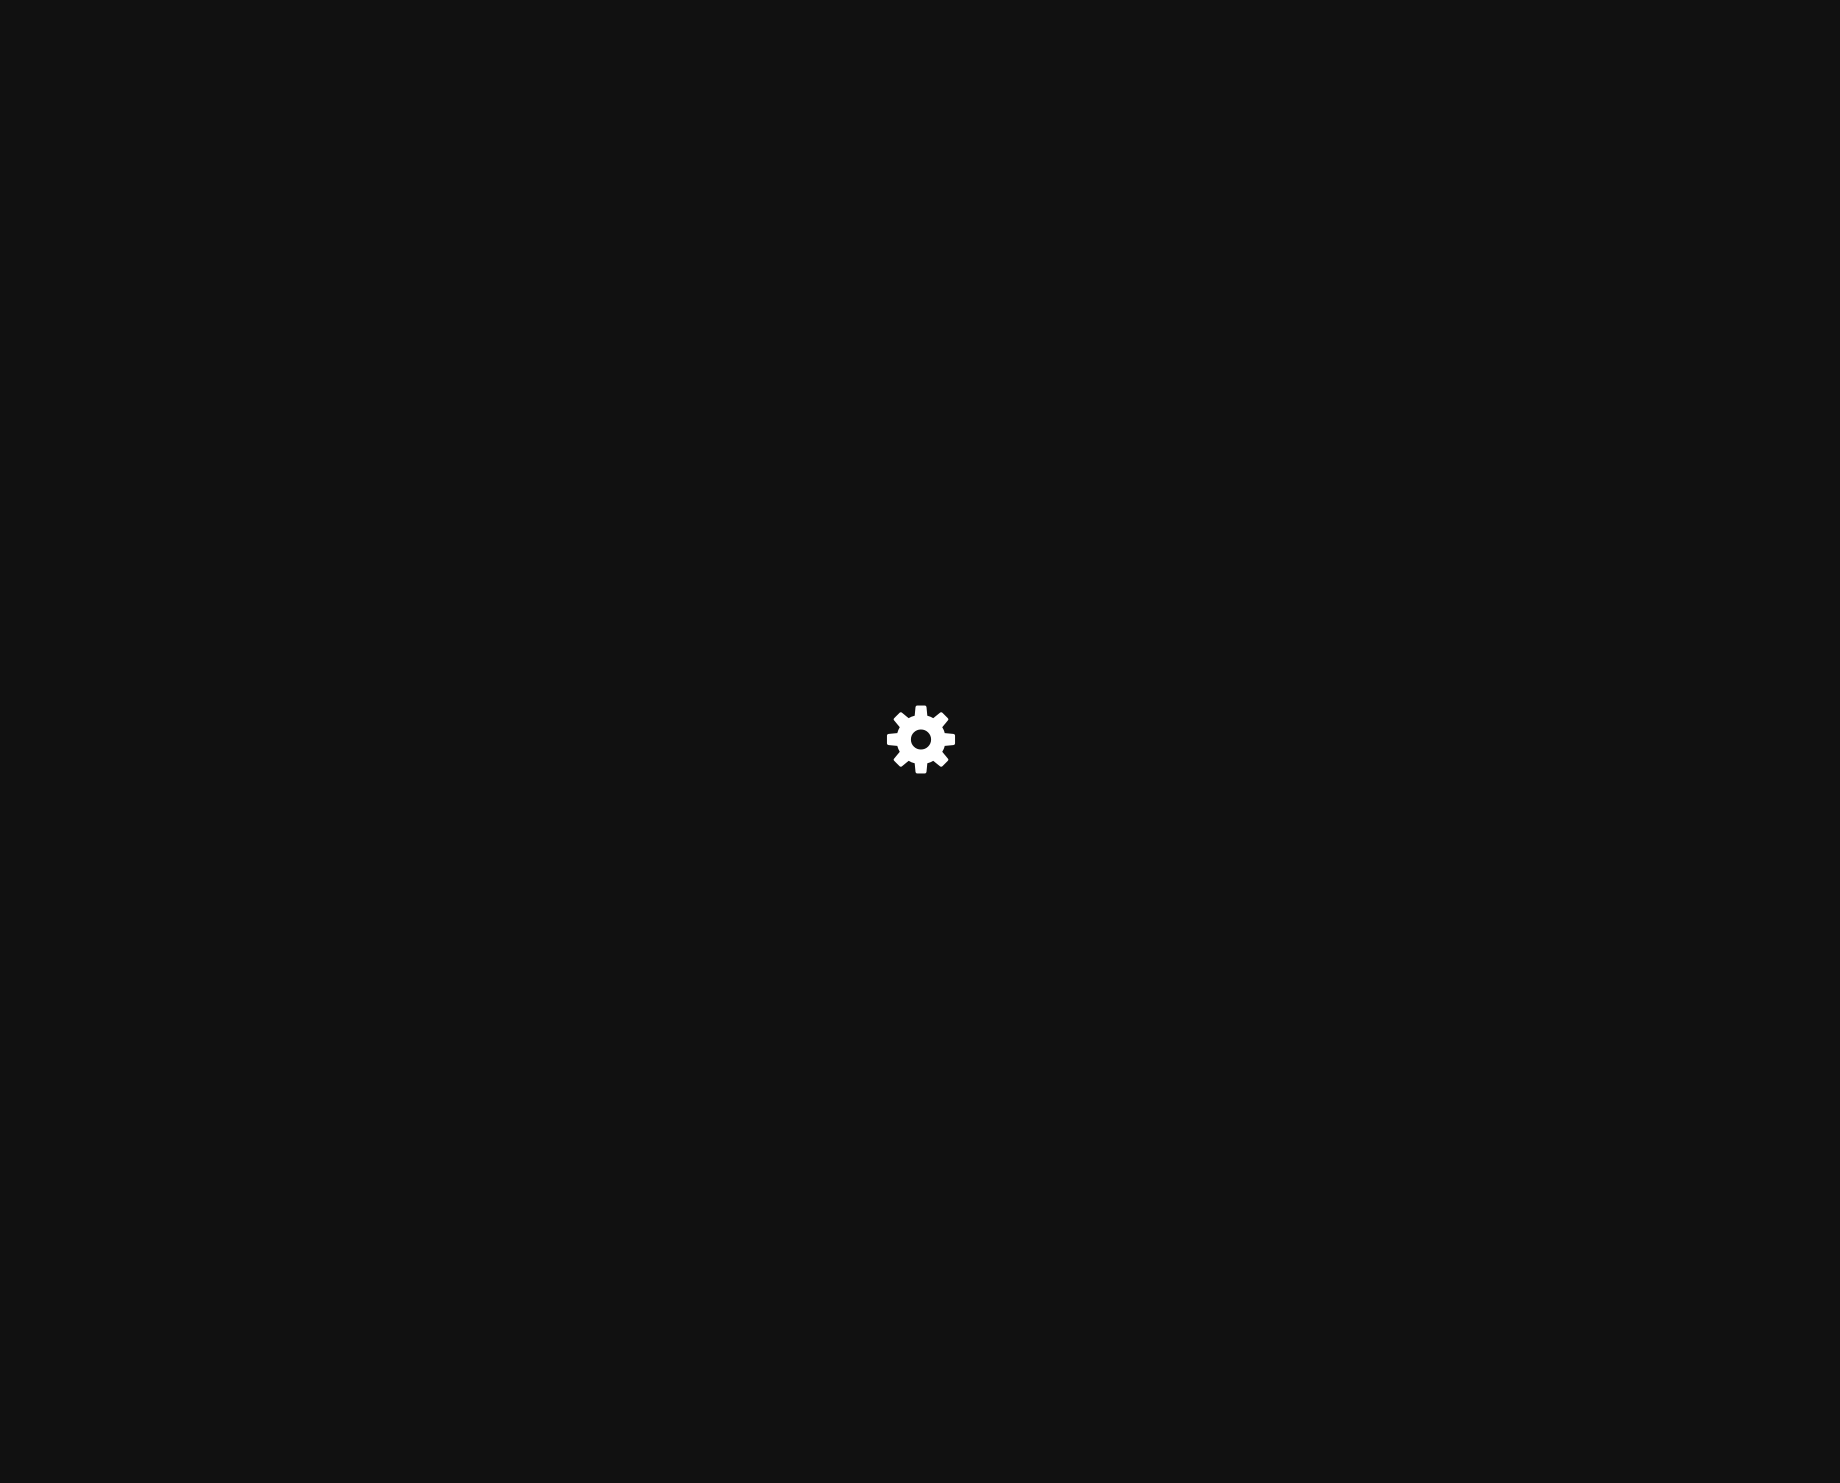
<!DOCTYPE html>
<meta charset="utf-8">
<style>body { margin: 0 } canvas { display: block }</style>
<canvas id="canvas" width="1840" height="1483"></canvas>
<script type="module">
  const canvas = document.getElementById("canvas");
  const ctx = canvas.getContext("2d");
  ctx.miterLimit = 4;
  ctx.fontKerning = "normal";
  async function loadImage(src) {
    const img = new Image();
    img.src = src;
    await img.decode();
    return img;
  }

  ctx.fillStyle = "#111111";
  ctx.fillRect(0, 0, 1840, 1483);
  ctx.drawImage(await loadImage("img1.png"), 886, 705, 70, 69);
</script>
